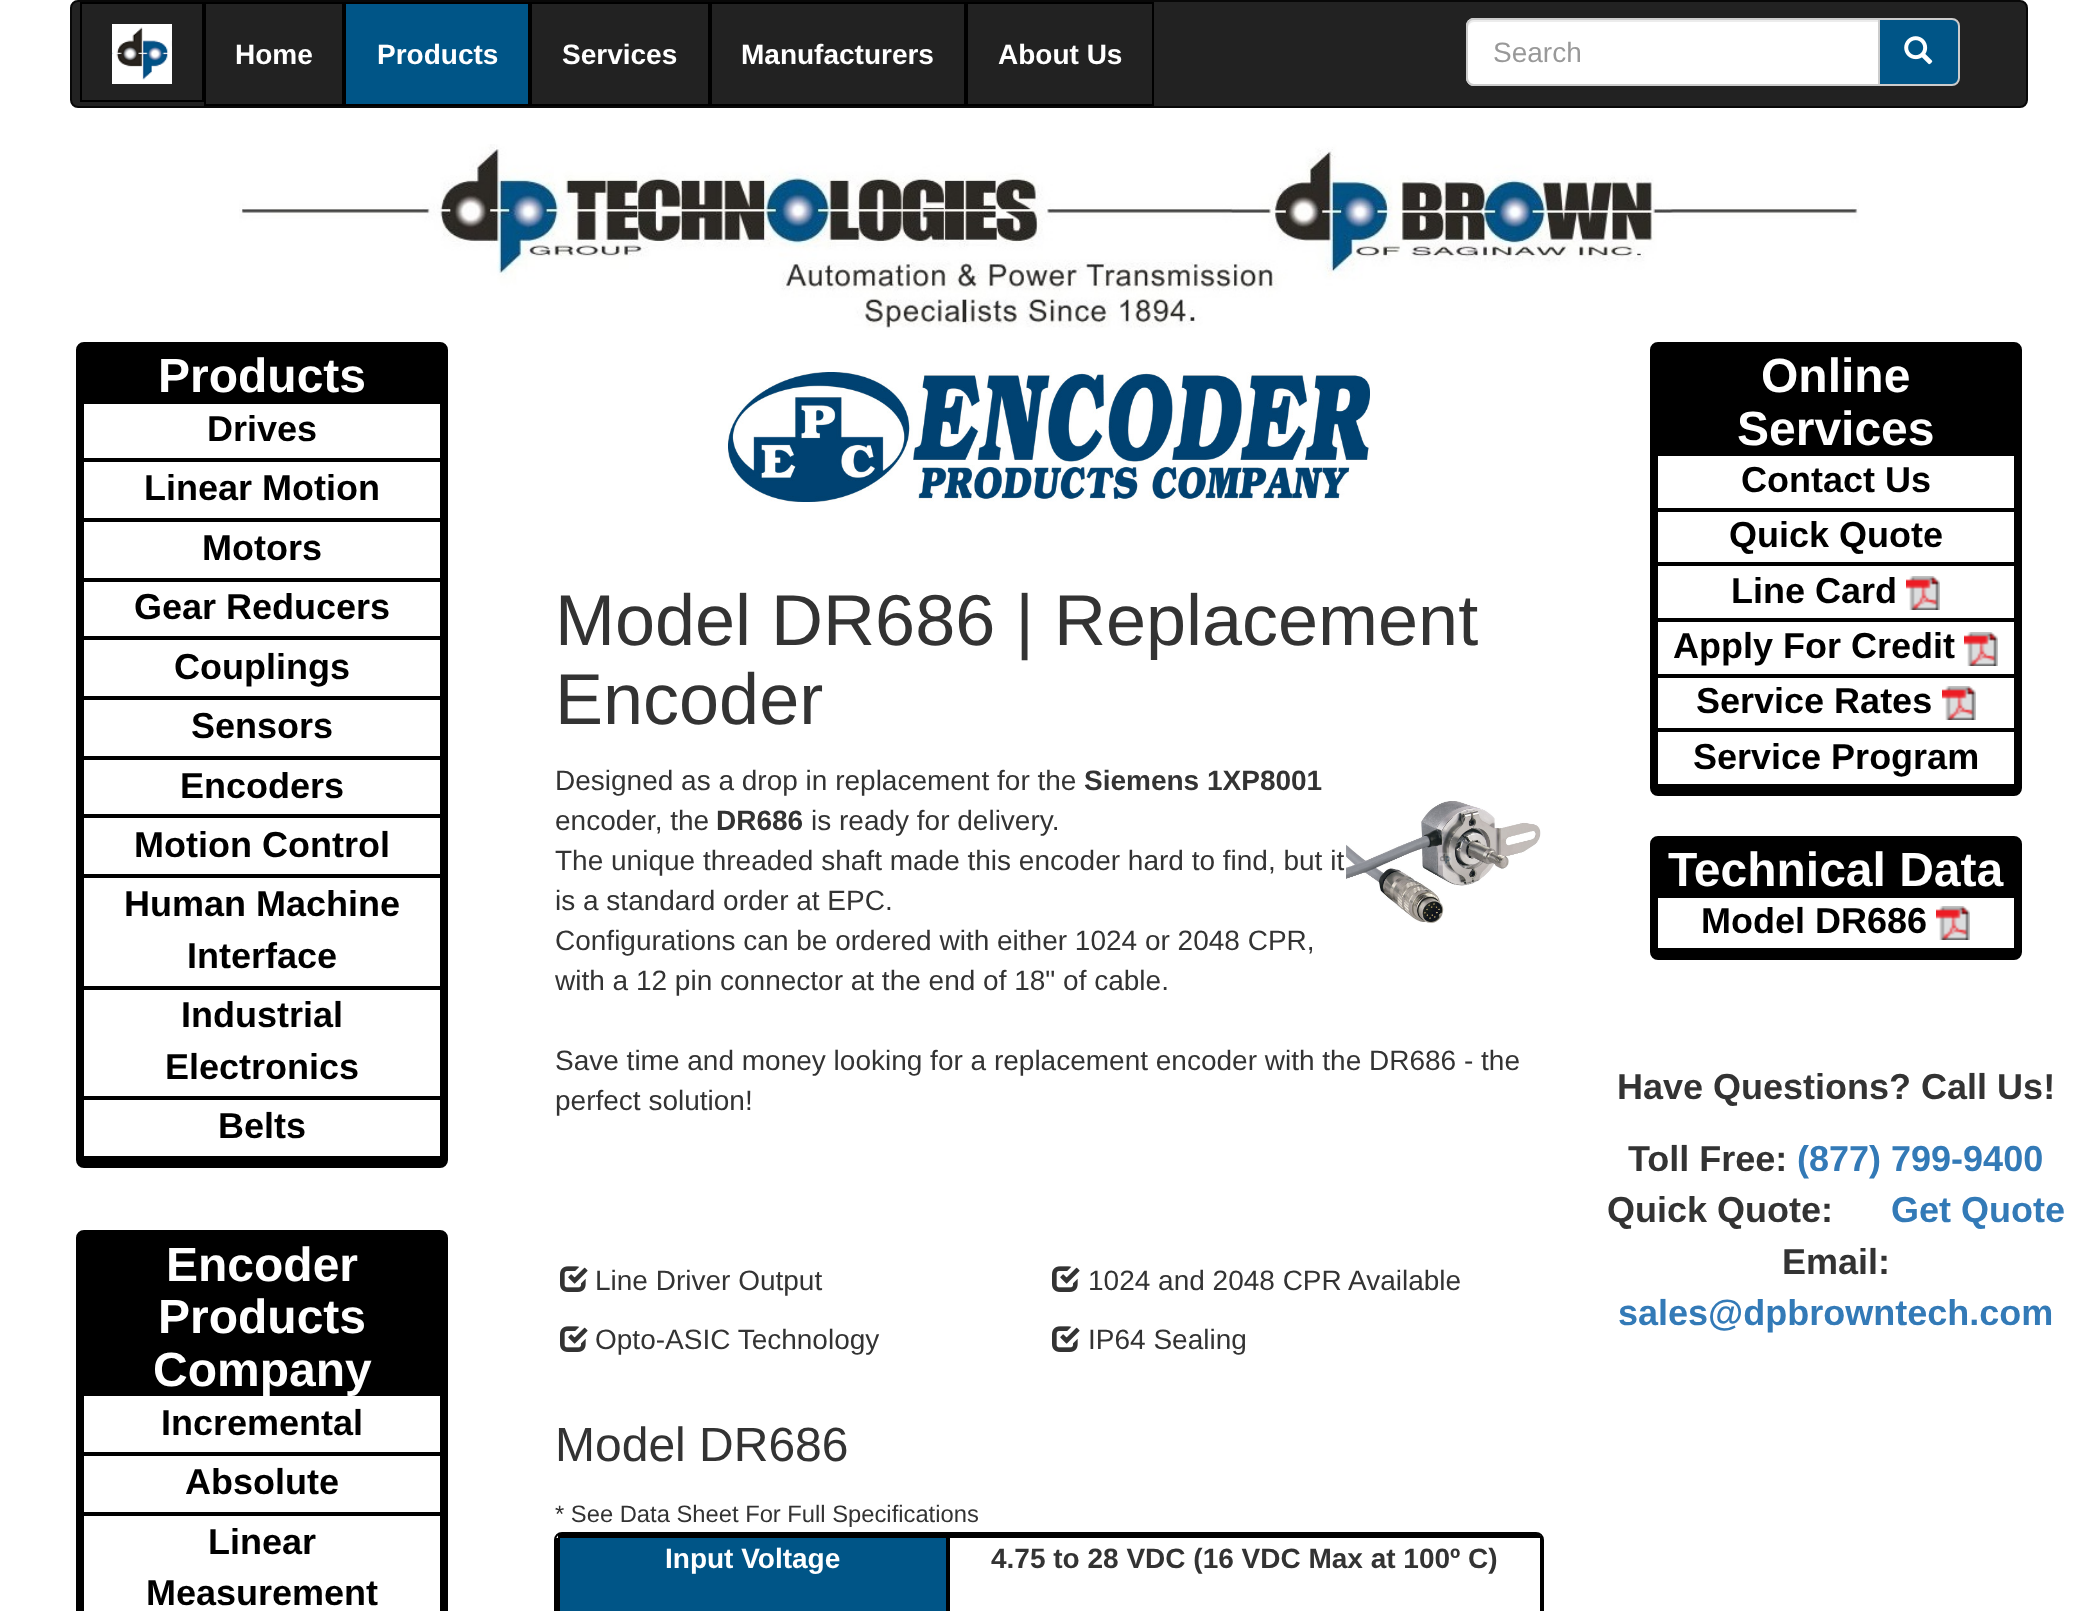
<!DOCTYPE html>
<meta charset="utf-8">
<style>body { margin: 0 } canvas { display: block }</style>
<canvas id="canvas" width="2098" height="1611"></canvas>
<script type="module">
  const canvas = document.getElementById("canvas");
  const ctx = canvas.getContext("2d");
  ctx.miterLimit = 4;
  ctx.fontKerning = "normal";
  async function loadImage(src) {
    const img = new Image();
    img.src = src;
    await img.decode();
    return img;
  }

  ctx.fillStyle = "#ffffff";
  ctx.fillRect(0, 0, 2098, 1611);
  ctx.fillStyle = "#222222";
  ctx.beginPath();
  ctx.roundRect(71, 1, 1956, 106, 7);
  ctx.fill();
  ctx.strokeStyle = "#080808";
  ctx.lineWidth = 2;
  ctx.stroke();
  ctx.strokeStyle = "#000000";
  ctx.strokeRect(81, 3, 122, 98);
  ctx.drawImage(await loadImage("img1.png"), 112, 24, 60, 60);
  ctx.strokeRect(205, 3, 138, 102);
  ctx.font = "bold 28px Liberation Sans";
  ctx.fillStyle = "#ffffff";
  ctx.fillText("Home", 235, 64);
  ctx.fillStyle = "#005587";
  ctx.beginPath();
  ctx.rect(345, 3, 184, 102);
  ctx.fill();
  ctx.stroke();
  ctx.fillStyle = "#ffffff";
  ctx.fillText("Products", 377, 64);
  ctx.strokeRect(531, 3, 178, 102);
  ctx.fillText("Services", 562, 64);
  ctx.strokeRect(711, 3, 254, 102);
  ctx.fillText("Manufacturers", 741, 64);
  ctx.strokeRect(967, 3, 186, 102);
  ctx.fillText("About Us", 998, 64);
  ctx.beginPath();
  ctx.roundRect(1466, 18, 414, 68, [8, 0, 0, 8]);
  ctx.fill();
  ctx.fillStyle = "#ececec";
  ctx.beginPath();
  ctx.moveTo(1474, 22);
  ctx.lineTo(1878, 22);
  ctx.lineTo(1878, 20);
  ctx.lineTo(1474, 20);
  ctx.bezierCurveTo(1471, 20, 1468, 23, 1468, 26);
  ctx.lineTo(1468, 28);
  ctx.bezierCurveTo(1468, 25, 1471, 22, 1474, 22);
  ctx.closePath();
  ctx.fill();
  ctx.beginPath();
  ctx.roundRect(1467, 19, 412, 66, [7, 0, 0, 7]);
  ctx.strokeStyle = "#cccccc";
  ctx.stroke();
  ctx.font = "28px Liberation Sans";
  ctx.fillStyle = "#999999";
  ctx.fillText("Search", 1493, 62);
  ctx.fillStyle = "#005587";
  ctx.beginPath();
  ctx.roundRect(1879, 19, 80, 66, [0, 7, 7, 0]);
  ctx.fill();
  ctx.stroke();
  ctx.drawImage(await loadImage("img2.png"), 1904, 36, 29, 29);
  ctx.drawImage(await loadImage("img3.png"), 239, 144, 1620, 186);
  ctx.beginPath();
  ctx.roundRect(80, 346, 364, 818, 4);
  ctx.strokeStyle = "#000000";
  ctx.lineWidth = 8;
  ctx.stroke();
  ctx.fillStyle = "#000000";
  ctx.fillRect(84, 350, 356, 54);
  ctx.font = "bold 48px Liberation Sans";
  ctx.fillStyle = "#ffffff";
  ctx.fillText("Products", 158, 392);
  ctx.fillStyle = "#000000";
  ctx.fillRect(84, 458, 356, 4);
  ctx.font = "bold 36px Liberation Sans";
  ctx.fillText("Drives", 207, 441);
  ctx.fillRect(84, 518, 356, 4);
  ctx.fillText("Linear Motion", 144, 500);
  ctx.fillRect(84, 578, 356, 4);
  ctx.fillText("Motors", 202, 560);
  ctx.fillRect(84, 636, 356, 4);
  ctx.fillText("Gear Reducers", 134, 619);
  ctx.fillRect(84, 696, 356, 4);
  ctx.fillText("Couplings", 174, 679);
  ctx.fillRect(84, 756, 356, 4);
  ctx.fillText("Sensors", 191, 738);
  ctx.fillRect(84, 814, 356, 4);
  ctx.fillText("Encoders", 180, 798);
  ctx.fillRect(84, 874, 356, 4);
  ctx.fillText("Motion Control", 134, 857);
  ctx.fillRect(84, 986, 356, 4);
  ctx.fillText("Human Machine", 124, 916);
  ctx.fillText("Interface", 187, 968);
  ctx.fillRect(84, 1096, 356, 4);
  ctx.fillText("Industrial", 181, 1027);
  ctx.fillText("Electronics", 165, 1079);
  ctx.fillRect(84, 1156, 356, 4);
  ctx.fillText("Belts", 218, 1138);
  ctx.beginPath();
  ctx.roundRect(80, 1234, 364, 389, 4);
  ctx.stroke();
  ctx.fillRect(84, 1238, 356, 158);
  ctx.font = "bold 48px Liberation Sans";
  ctx.fillStyle = "#ffffff";
  ctx.fillText("Encoder", 166, 1281);
  ctx.fillText("Products", 158, 1333);
  ctx.fillText("Company", 153, 1386);
  ctx.fillStyle = "#000000";
  ctx.fillRect(84, 1452, 356, 4);
  ctx.font = "bold 36px Liberation Sans";
  ctx.fillText("Incremental", 161, 1435);
  ctx.fillRect(84, 1512, 356, 4);
  ctx.fillText("Absolute", 185, 1494);
  ctx.fillText("Linear", 208, 1554);
  ctx.fillText("Measurement", 146, 1605);
  ctx.drawImage(await loadImage("img4.png"), 728, 372, 642, 130);
  ctx.font = "72px Liberation Sans";
  ctx.fillStyle = "#333333";
  ctx.fillText("Model DR686 | Replacement", 555, 645);
  ctx.fillText("Encoder", 555, 724);
  ctx.font = "28px Liberation Sans";
  ctx.fillText("Designed as a drop in replacement for the", 555, 790);
  ctx.font = "bold 28px Liberation Sans";
  ctx.fillText("Siemens 1XP8001", 1084, 790);
  ctx.font = "28px Liberation Sans";
  ctx.fillText("encoder, the", 555, 830);
  ctx.font = "bold 28px Liberation Sans";
  ctx.fillText("DR686", 716, 830);
  ctx.font = "28px Liberation Sans";
  ctx.fillText("is ready for delivery.", 811, 830);
  ctx.drawImage(await loadImage("img5.png"), 1346, 801, 195, 123);
  ctx.fillText("The unique threaded shaft made this encoder hard to find, but it", 555, 870);
  ctx.fillText("is a standard order at EPC.", 555, 910);
  ctx.fillText("Configurations can be ordered with either 1024 or 2048 CPR,", 555, 950);
  ctx.fillText("with a 12 pin connector at the end of 18\" of cable.", 555, 990);
  ctx.fillText("Save time and money looking for a replacement encoder with the DR686 - the", 555, 1070);
  ctx.fillText("perfect solution!", 555, 1110);
  ctx.drawImage(await loadImage("img6.png"), 560, 1266, 28, 26);
  ctx.fillText("Line Driver Output", 595, 1290);
  ctx.drawImage(await loadImage("img6.png"), 1052, 1266, 28, 26);
  ctx.fillText("1024 and 2048 CPR Available", 1088, 1290);
  ctx.drawImage(await loadImage("img6.png"), 560, 1326, 28, 26);
  ctx.fillText("Opto-ASIC Technology", 595, 1349);
  ctx.drawImage(await loadImage("img6.png"), 1052, 1326, 28, 26);
  ctx.fillText("IP64 Sealing", 1088, 1349);
  ctx.font = "48px Liberation Sans";
  ctx.fillText("Model DR686", 555, 1461);
  ctx.font = "23.75px Liberation Sans";
  ctx.fillText("* See Data Sheet For Full Specifications", 555, 1522);
  ctx.beginPath();
  ctx.moveTo(562, 1533);
  ctx.lineTo(1536, 1533);
  ctx.bezierCurveTo(1540, 1533, 1543, 1536, 1543, 1540);
  ctx.lineTo(1543, 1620);
  ctx.lineTo(555, 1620);
  ctx.lineTo(555, 1540);
  ctx.bezierCurveTo(555, 1536, 558, 1533, 562, 1533);
  ctx.closePath();
  ctx.lineWidth = 2;
  ctx.stroke();
  ctx.fillStyle = "#000000";
  ctx.fillRect(558, 1534, 982, 4);
  ctx.fillRect(1540, 1536, 2, 75);
  ctx.fillStyle = "#005587";
  ctx.fillRect(560, 1538, 386, 73);
  ctx.fillStyle = "#000000";
  ctx.fillRect(946, 1538, 4, 73);
  ctx.fillRect(556, 1538, 4, 73);
  ctx.font = "bold 28px Liberation Sans";
  ctx.fillStyle = "#ffffff";
  ctx.fillText("Input Voltage", 665, 1568);
  ctx.fillStyle = "#333333";
  ctx.fillText("4.75 to 28 VDC (16 VDC Max at 100º C)", 991, 1568);
  ctx.beginPath();
  ctx.roundRect(1654, 346, 364, 446, 4);
  ctx.lineWidth = 8;
  ctx.stroke();
  ctx.fillStyle = "#000000";
  ctx.fillRect(1658, 350, 356, 106);
  ctx.font = "bold 48px Liberation Sans";
  ctx.fillStyle = "#ffffff";
  ctx.fillText("Online", 1761, 392);
  ctx.fillText("Services", 1737, 445);
  ctx.fillStyle = "#000000";
  ctx.fillRect(1658, 508, 356, 4);
  ctx.font = "bold 36px Liberation Sans";
  ctx.fillText("Contact Us", 1741, 492);
  ctx.fillRect(1658, 562, 356, 4);
  ctx.fillText("Quick Quote", 1729, 547);
  ctx.fillRect(1658, 618, 356, 4);
  ctx.fillText("Line Card", 1731, 603);
  ctx.drawImage(await loadImage("img7.png"), 1906, 576, 34, 34);
  ctx.fillRect(1658, 674, 356, 4);
  ctx.fillText("Apply For Credit", 1673, 658);
  ctx.drawImage(await loadImage("img7.png"), 1964, 632, 34, 34);
  ctx.fillRect(1658, 728, 356, 4);
  ctx.fillText("Service Rates", 1696, 713);
  ctx.drawImage(await loadImage("img7.png"), 1942, 686, 34, 34);
  ctx.fillRect(1658, 784, 356, 4);
  ctx.fillText("Service Program", 1693, 769);
  ctx.beginPath();
  ctx.roundRect(1654, 840, 364, 116, 4);
  ctx.stroke();
  ctx.fillRect(1658, 844, 356, 54);
  ctx.font = "bold 48px Liberation Sans";
  ctx.fillStyle = "#ffffff";
  ctx.fillText("Technical Data", 1668, 886);
  ctx.fillStyle = "#000000";
  ctx.fillRect(1658, 948, 356, 4);
  ctx.font = "bold 36px Liberation Sans";
  ctx.fillText("Model DR686", 1701, 933);
  ctx.drawImage(await loadImage("img7.png"), 1936, 906, 34, 34);
  ctx.fillStyle = "#333333";
  ctx.fillText("Have Questions? Call Us!", 1617, 1099);
  ctx.fillText("Toll Free:", 1628, 1171);
  ctx.fillStyle = "#337ab7";
  ctx.fillText("(877) 799-9400", 1797, 1171);
  ctx.fillStyle = "#333333";
  ctx.fillText("Quick Quote:", 1607, 1222);
  ctx.fillStyle = "#337ab7";
  ctx.fillText("Get Quote", 1891, 1222);
  ctx.fillStyle = "#333333";
  ctx.fillText("Email:", 1782, 1274);
  ctx.fillStyle = "#337ab7";
  ctx.fillText("sales@dpbrowntech.com", 1618, 1325);
</script>
